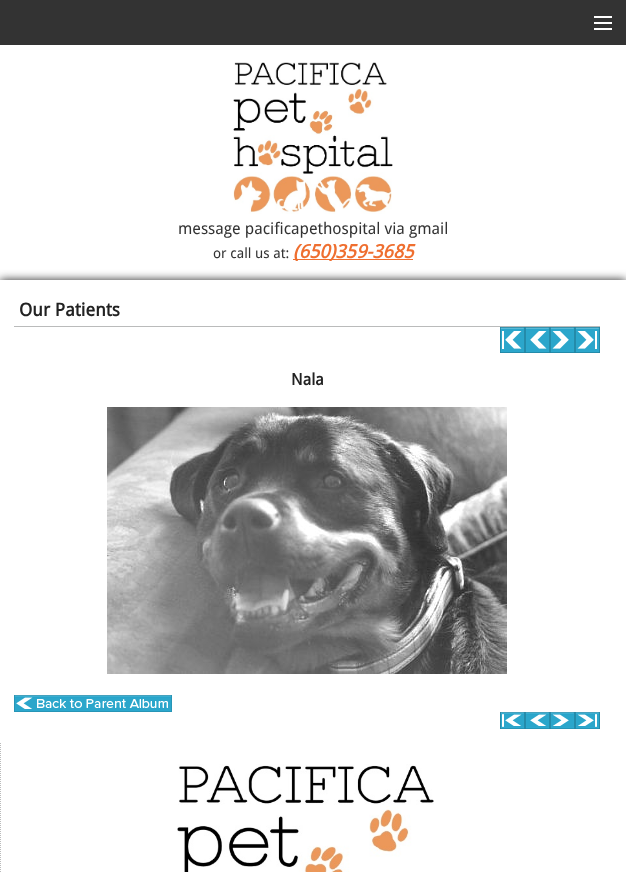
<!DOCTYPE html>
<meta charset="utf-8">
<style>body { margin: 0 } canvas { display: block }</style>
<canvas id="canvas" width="626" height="872"></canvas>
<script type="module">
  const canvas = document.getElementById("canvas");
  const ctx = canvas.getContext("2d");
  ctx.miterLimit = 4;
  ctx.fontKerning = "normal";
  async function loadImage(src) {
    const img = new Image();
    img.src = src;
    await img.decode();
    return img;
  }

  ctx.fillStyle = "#ffffff";
  ctx.fillRect(0, 0, 626, 872);
  ctx.fillStyle = "#333333";
  ctx.fillRect(0, 0, 626, 45);
  ctx.fillStyle = "#ffffff";
  ctx.fillRect(594, 28, 18, 2);
  ctx.fillRect(594, 22, 18, 2);
  ctx.fillRect(594, 16, 18, 2);
  ctx.drawImage(await loadImage("img1.png"), 233, 62, 160, 152);
  ctx.font = "16px Droid Sans";
  ctx.fillStyle = "#333333";
  ctx.fillText("message pacificapethospital via gmail", 178, 234);
  ctx.font = "14px Droid Sans";
  ctx.fillText("or call us at:", 213, 258);
  ctx.fillStyle = "#ef6f30";
  ctx.fillRect(293, 259, 120, 1);
  ctx.font = "italic bold 18.75px Droid Sans";
  ctx.fillText("(650)359-3685", 293, 258);
  ctx.fillStyle = "#222222";
  ctx.filter = "blur(5px)";
  ctx.beginPath();
  ctx.rect(0, 280, 626, 463);
  ctx.fill();
  ctx.filter = "none";
  ctx.fillStyle = "#ffffff";
  ctx.fillRect(0, 280, 626, 474);
  ctx.fillStyle = "#babbbb";
  ctx.fillRect(14, 326, 586, 1);
  ctx.font = "bold 18px Droid Sans";
  ctx.fillStyle = "#222222";
  ctx.fillText("Our Patients", 19, 316);
  ctx.drawImage(await loadImage("img2.png"), 500, 327, 25, 26);
  ctx.drawImage(await loadImage("img3.png"), 525, 327, 25, 26);
  ctx.drawImage(await loadImage("img4.png"), 550, 327, 25, 26);
  ctx.drawImage(await loadImage("img5.png"), 575, 327, 25, 26);
  ctx.font = "bold 16px Droid Sans";
  ctx.fillText("Nala", 291, 385);
  ctx.drawImage(await loadImage("img6.png"), 107, 407, 400, 267);
  ctx.drawImage(await loadImage("img7.png"), 14, 695, 158, 17);
  ctx.drawImage(await loadImage("img8.png"), 500, 712, 25, 17);
  ctx.drawImage(await loadImage("img9.png"), 525, 712, 25, 17);
  ctx.drawImage(await loadImage("img10.png"), 550, 712, 25, 17);
  ctx.drawImage(await loadImage("img11.png"), 575, 712, 25, 17);
  ctx.beginPath();
  ctx.moveTo(0.5, 743);
  ctx.lineTo(0.5, 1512);
  ctx.strokeStyle = "#babbbb";
  ctx.setLineDash([1, 1]);
  ctx.stroke();
  ctx.drawImage(await loadImage("img12.png"), 177, 764, 257, 108);
</script>
